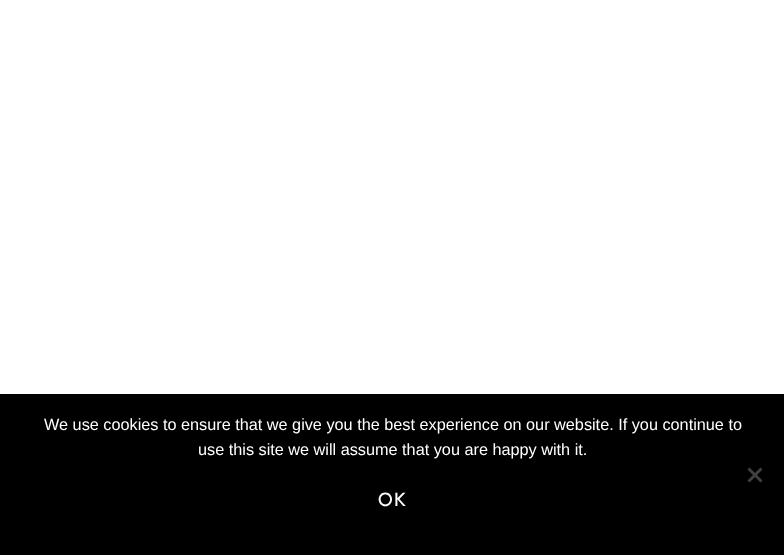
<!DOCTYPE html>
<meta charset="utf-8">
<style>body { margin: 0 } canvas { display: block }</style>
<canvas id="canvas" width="784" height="555"></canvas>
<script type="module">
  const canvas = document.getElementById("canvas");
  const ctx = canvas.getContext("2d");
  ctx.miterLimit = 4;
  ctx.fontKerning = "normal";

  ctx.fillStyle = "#ffffff";
  ctx.fillRect(0, 0, 784, 555);
  ctx.fillStyle = "#000000";
  ctx.fillRect(0, 394, 784, 161);
  ctx.font = "16.25px Liberation Sans";
  ctx.fillStyle = "#ffffff";
  ctx.fillText("We use cookies to ensure that we give you the best experience on our website. If you continue to", 44, 430);
  ctx.fillText("use this site we will assume that you are happy with it.", 198, 455);
  ctx.fillStyle = "#404040";
  ctx.beginPath();
  ctx.moveTo(760.5, 467.5);
  ctx.lineTo(762.5, 469.5);
  ctx.lineTo(749.5, 482.5);
  ctx.lineTo(747.5, 480.5);
  ctx.closePath();
  ctx.fill();
  ctx.beginPath();
  ctx.moveTo(747.5, 469.5);
  ctx.lineTo(749.5, 467.5);
  ctx.lineTo(762.5, 480.5);
  ctx.lineTo(760.5, 482.5);
  ctx.closePath();
  ctx.fill();
  ctx.letterSpacing = "1px";
  ctx.font = "19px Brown";
  ctx.fillStyle = "#ffffff";
  ctx.fillText("OK", 378, 506);
</script>
